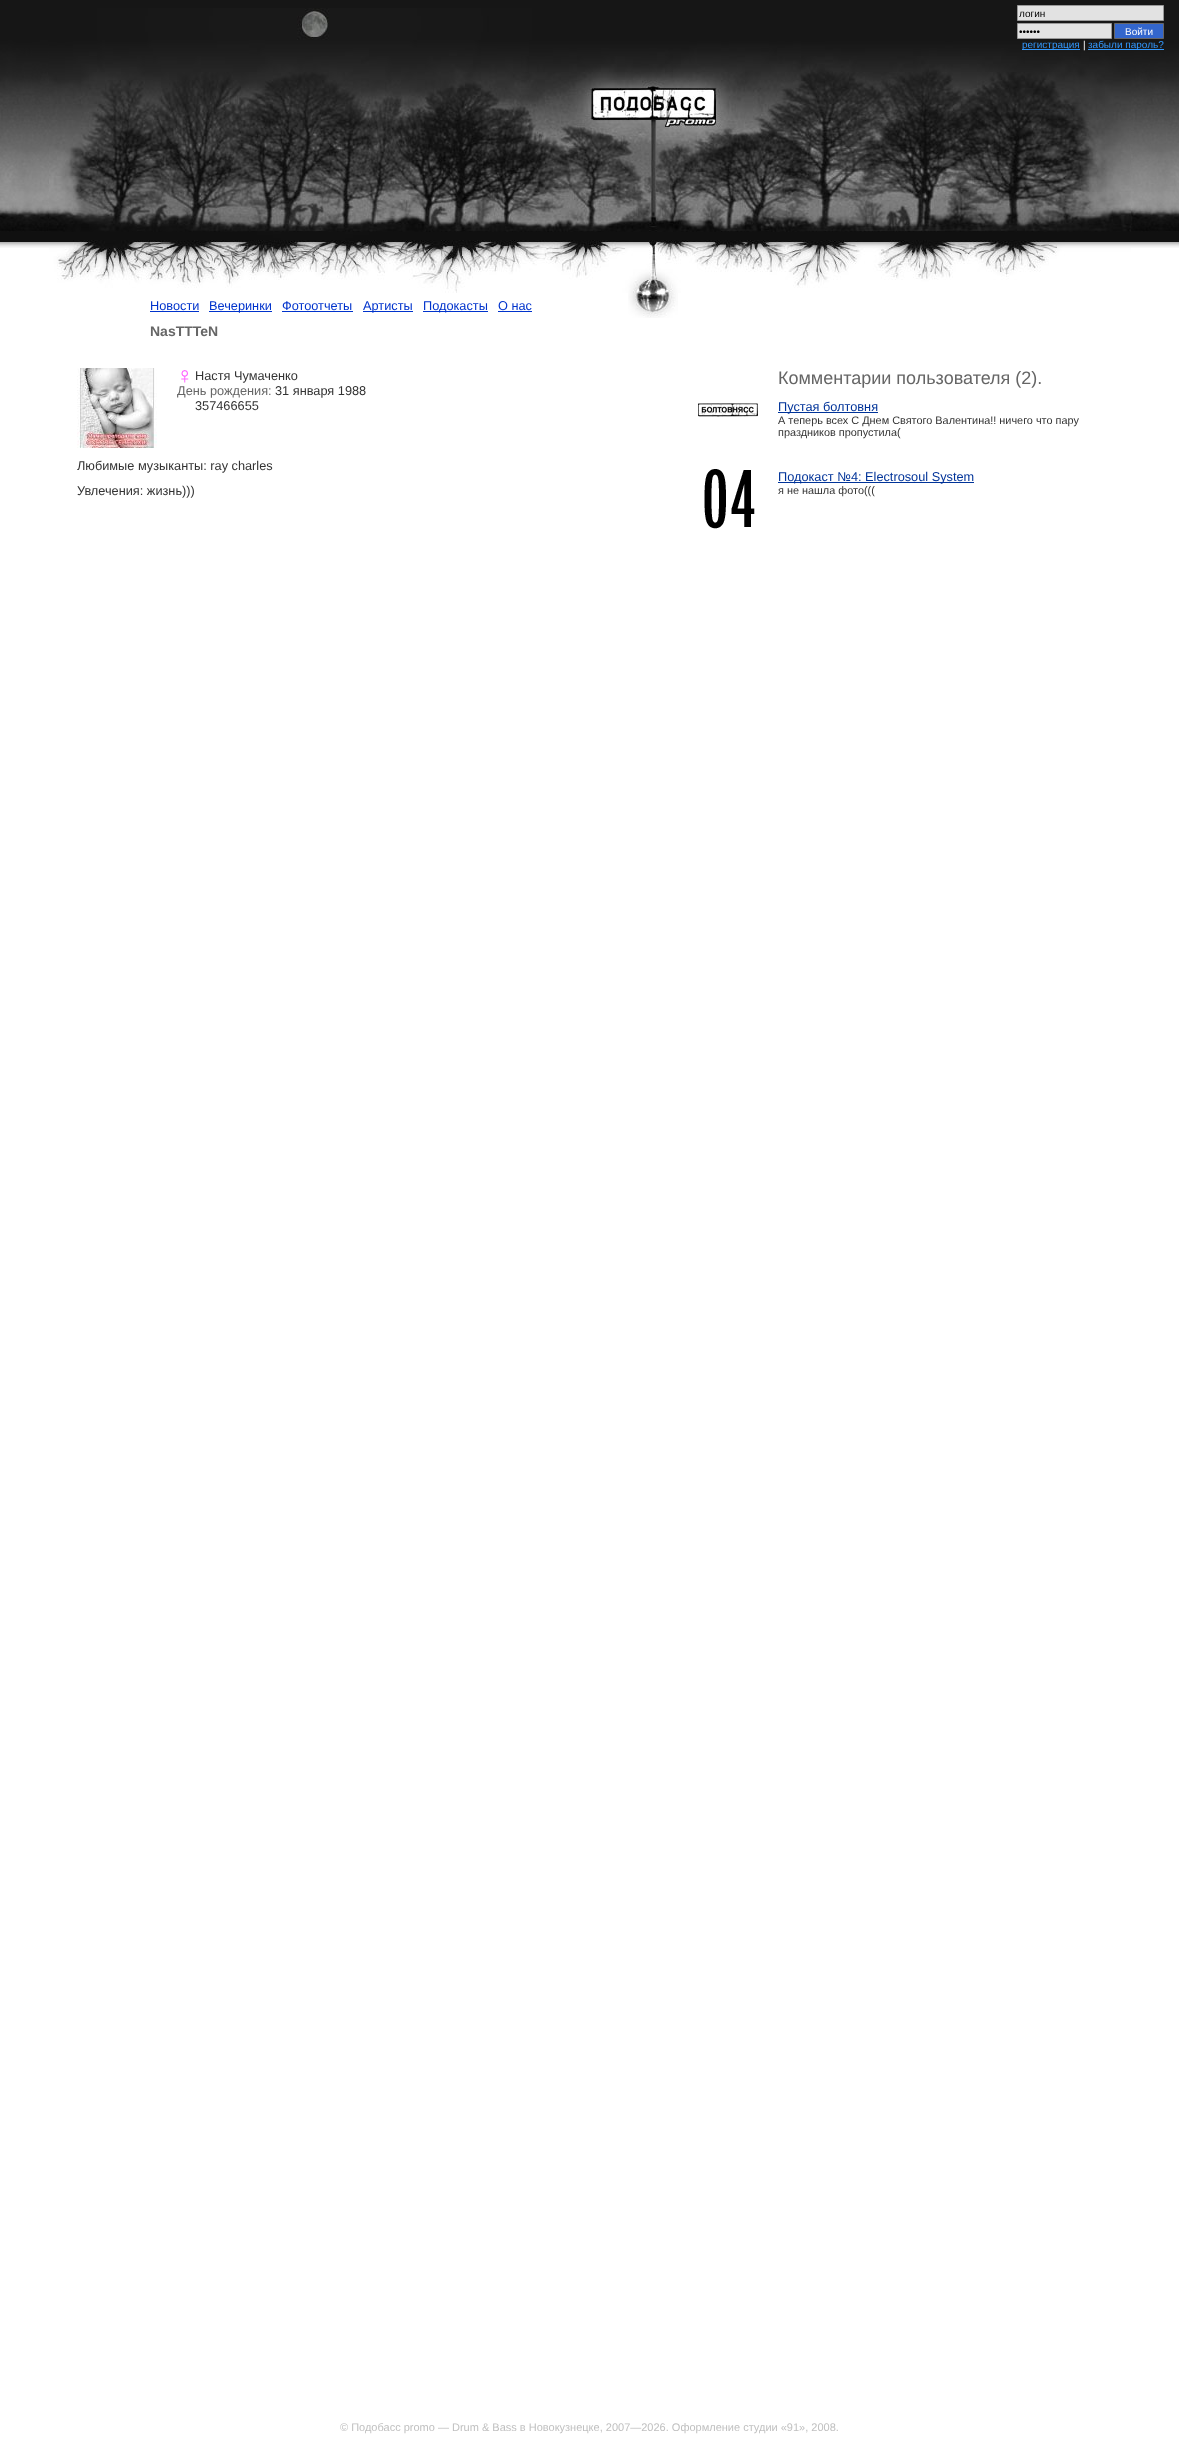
<!DOCTYPE html>
<meta charset="utf-8">
<style>body { margin: 0 } canvas { display: block }</style>
<canvas id="canvas" width="1179" height="2437"></canvas>
<script type="module">
  const canvas = document.getElementById("canvas");
  const ctx = canvas.getContext("2d");
  ctx.miterLimit = 4;
  ctx.fontKerning = "normal";
  async function loadImage(src) {
    const img = new Image();
    img.src = src;
    await img.decode();
    return img;
  }

  ctx.fillStyle = "#ffffff";
  ctx.fillRect(0, 0, 1179, 2437);
  ctx.drawImage(await loadImage("img1.png"), 0, 0, 1179, 248);
  ctx.drawImage(await loadImage("img2.png"), 49, 8, 1082, 285);
  ctx.fillStyle = "#e2e2e2";
  ctx.beginPath();
  ctx.rect(1017.5, 5.5, 146, 15);
  ctx.fill();
  ctx.strokeStyle = "#999999";
  ctx.stroke();
  ctx.font = "10px Liberation Sans";
  ctx.fillStyle = "#000000";
  ctx.fillText("логин", 1019, 17);
  ctx.fillStyle = "#e2e2e2";
  ctx.beginPath();
  ctx.rect(1017.5, 23.5, 94, 15);
  ctx.fill();
  ctx.stroke();
  ctx.fillStyle = "#000000";
  ctx.fillText("••••••", 1019, 35);
  ctx.fillStyle = "#3366cc";
  ctx.beginPath();
  ctx.rect(1114.5, 23.5, 49, 15);
  ctx.fill();
  ctx.strokeStyle = "#666666";
  ctx.stroke();
  ctx.fillStyle = "#ffffff";
  ctx.fillText("Войти", 1125, 35);
  ctx.fillStyle = "#3399ff";
  ctx.fillRect(1022, 49, 58, 1);
  ctx.fillText("регистрация", 1022, 48);
  ctx.fillStyle = "#ffffff";
  ctx.fillText("|", 1083, 48);
  ctx.fillStyle = "#3399ff";
  ctx.fillRect(1088, 49, 76, 1);
  ctx.fillText("забыли пароль?", 1088, 48);
  ctx.font = "12.75px Liberation Sans";
  ctx.fillStyle = "#0033cc";
  ctx.fillText("Новости", 150, 310);
  ctx.fillRect(150, 311, 49, 1);
  ctx.fillRect(209, 311, 63, 1);
  ctx.fillText("Вечеринки", 209, 310);
  ctx.fillText("Фотоотчеты", 282, 310);
  ctx.fillRect(282, 311, 71, 1);
  ctx.fillRect(363, 311, 50, 1);
  ctx.fillText("Артисты", 363, 310);
  ctx.fillRect(423, 311, 65, 1);
  ctx.fillText("Подокасты", 423, 310);
  ctx.fillText("О нас", 498, 310);
  ctx.fillRect(498, 311, 34, 1);
  ctx.font = "bold 14px Liberation Sans";
  ctx.fillStyle = "#666666";
  ctx.fillText("NasTTTeN", 150, 336);
  ctx.drawImage(await loadImage("img3.png"), 628, 293, 50, 25);
  ctx.drawImage(await loadImage("img4.png"), 77, 368, 80, 80);
  ctx.drawImage(await loadImage("img5.png"), 181, 370, 8, 13);
  ctx.font = "12.75px Liberation Sans";
  ctx.fillStyle = "#333333";
  ctx.fillText("Настя Чумаченко", 195, 380);
  ctx.fillStyle = "#666666";
  ctx.fillText("День рождения:", 177, 395);
  ctx.fillStyle = "#333333";
  ctx.fillText("31 января 1988", 275, 395);
  ctx.fillText("357466655", 195, 410);
  ctx.fillText("Любимые музыканты: ray charles", 77, 470);
  ctx.fillText("Увлечения: жизнь)))", 77, 495);
  ctx.font = "18px Liberation Sans";
  ctx.fillStyle = "#666666";
  ctx.fillText("Комментарии пользователя (2).", 778, 384);
  ctx.drawImage(await loadImage("img6.png"), 698, 403, 60, 14);
  ctx.fillStyle = "#003399";
  ctx.fillRect(778, 412, 100, 1);
  ctx.font = "12.75px Liberation Sans";
  ctx.fillText("Пустая болтовня", 778, 411);
  ctx.font = "10.9px Liberation Sans";
  ctx.fillStyle = "#333333";
  ctx.fillText("А теперь всех С Днем Святого Валентина!! ничего что пару", 778, 424);
  ctx.fillText("праздников пропустила(", 778, 436);
  ctx.drawImage(await loadImage("img7.png"), 704, 469, 51, 60);
  ctx.fillStyle = "#003399";
  ctx.fillRect(778, 482, 196, 1);
  ctx.font = "12.75px Liberation Sans";
  ctx.fillText("Подокаст №4: Electrosoul System", 778, 481);
  ctx.font = "10.9px Liberation Sans";
  ctx.fillStyle = "#333333";
  ctx.fillText("я не нашла фото(((", 778, 494);
  ctx.font = "11px Liberation Sans";
  ctx.fillStyle = "#c0c0c0";
  ctx.fillText("© Подобасс promo — Drum & Bass в Новокузнецке, 2007—2026. Оформление студии «91», 2008.", 340, 2431);
</script>
